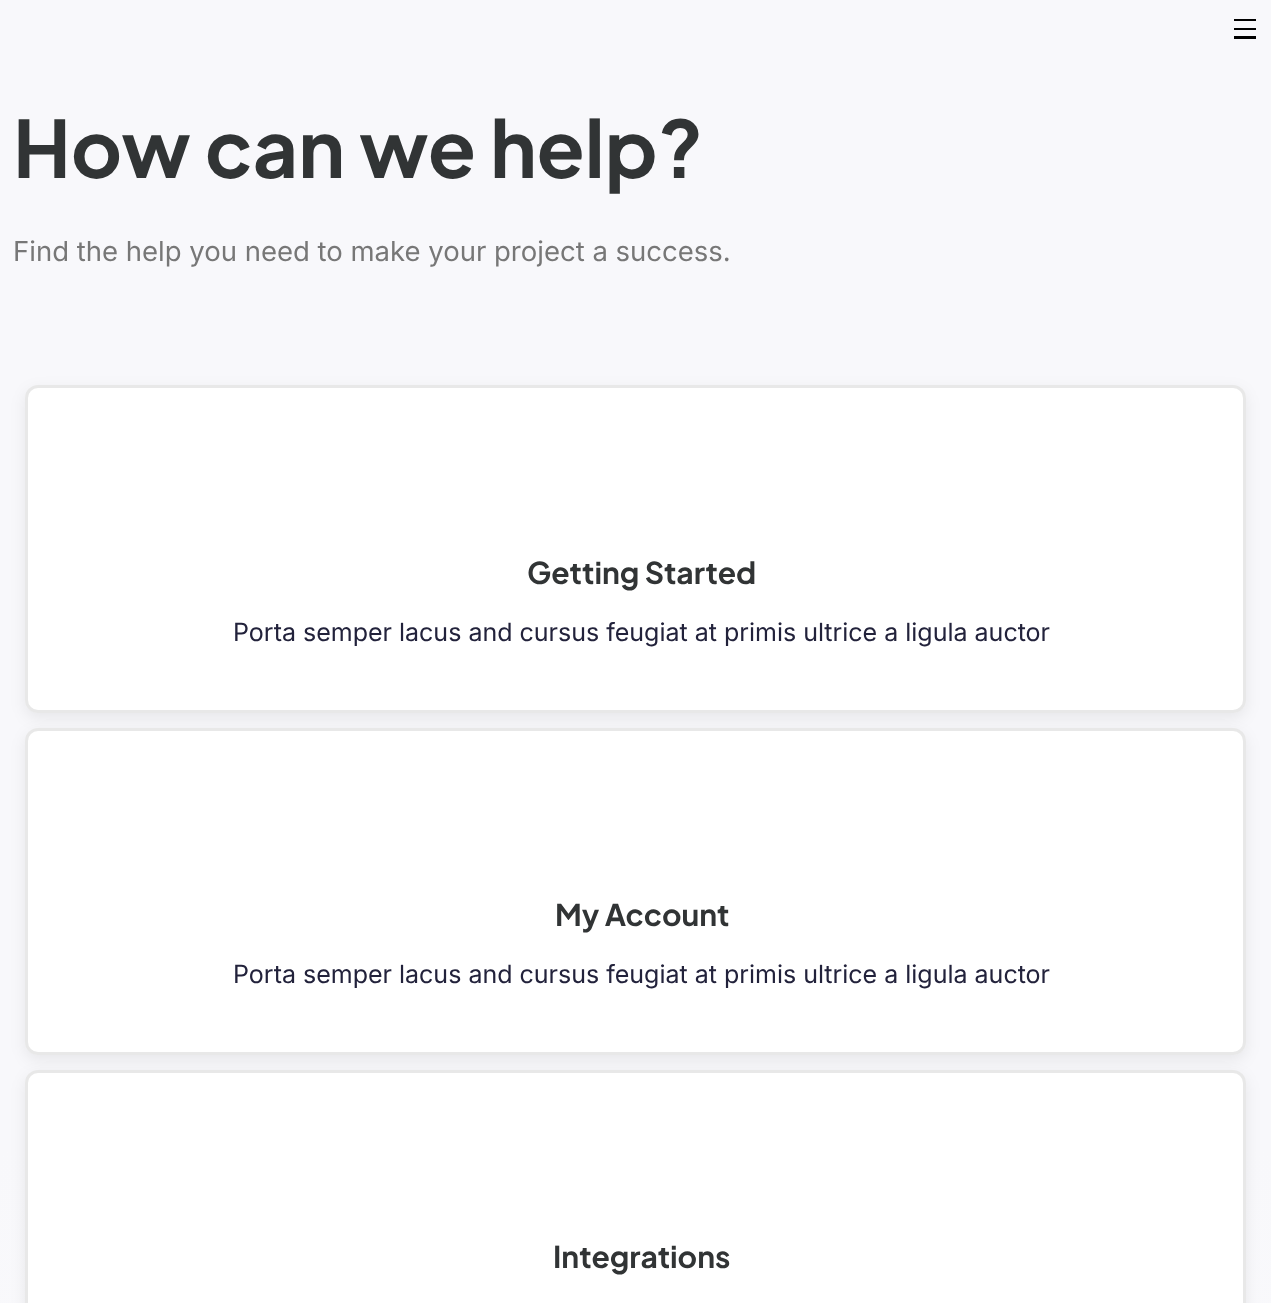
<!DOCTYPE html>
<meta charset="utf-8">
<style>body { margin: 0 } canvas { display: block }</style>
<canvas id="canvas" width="1271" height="1303"></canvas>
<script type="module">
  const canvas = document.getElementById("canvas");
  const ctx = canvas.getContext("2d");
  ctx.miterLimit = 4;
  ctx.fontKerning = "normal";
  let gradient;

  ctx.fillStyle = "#ffffff";
  ctx.fillRect(0, 0, 1271, 1303);
  gradient = ctx.createLinearGradient(636, 0, 636, 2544);
  gradient.addColorStop(0.45, "#f8f8fb");
  gradient.addColorStop(1, "#ffffff");
  ctx.fillStyle = gradient;
  ctx.fillRect(0, 0, 1271, 1303);
  ctx.fillStyle = "#000000";
  ctx.fillRect(1234, 19, 22, 2);
  ctx.fillRect(1234, 28, 22, 2);
  ctx.fillRect(1234, 36, 22, 3);
  ctx.font = "bold 78.75px Plus Jakarta Sans";
  ctx.fillStyle = "#313435";
  ctx.fillText("How can we help?", 13, 178);
  ctx.font = "27.5px Inter";
  ctx.fillStyle = "#777777";
  ctx.fillText("Find the help you need to make your project a success.", 13, 261);
  ctx.fillStyle = "rgba(0, 0, 0, 0.07)";
  ctx.filter = "blur(7.5px)";
  ctx.beginPath();
  ctx.roundRect(25, 390, 1221, 328, 13);
  ctx.fill();
  ctx.filter = "none";
  ctx.fillStyle = "#ffffff";
  ctx.beginPath();
  ctx.roundRect(25, 385, 1221, 328, 13);
  ctx.fill();
  ctx.beginPath();
  ctx.roundRect(26.5, 386.5, 1218, 325, 11.5);
  ctx.strokeStyle = "rgba(204, 204, 204, 0.46)";
  ctx.lineWidth = 3;
  ctx.stroke();
  ctx.font = "bold 30px Plus Jakarta Sans";
  ctx.fillStyle = "#313435";
  ctx.fillText("Getting Started", 527, 584);
  ctx.font = "25px Inter";
  ctx.fillStyle = "#22223b";
  ctx.fillText("Porta semper lacus and cursus feugiat at primis ultrice a ligula auctor", 233, 641);
  ctx.fillStyle = "rgba(0, 0, 0, 0.07)";
  ctx.filter = "blur(7.5px)";
  ctx.beginPath();
  ctx.roundRect(25, 733, 1221, 327, 13);
  ctx.fill();
  ctx.filter = "none";
  ctx.fillStyle = "#ffffff";
  ctx.beginPath();
  ctx.roundRect(25, 728, 1221, 327, 13);
  ctx.fill();
  ctx.beginPath();
  ctx.roundRect(26.5, 729.5, 1218, 324, 11.5);
  ctx.stroke();
  ctx.font = "bold 30px Plus Jakarta Sans";
  ctx.fillStyle = "#313435";
  ctx.fillText("My Account", 555, 926);
  ctx.font = "25px Inter";
  ctx.fillStyle = "#22223b";
  ctx.fillText("Porta semper lacus and cursus feugiat at primis ultrice a ligula auctor", 233, 983);
  ctx.fillStyle = "rgba(0, 0, 0, 0.07)";
  ctx.filter = "blur(7.5px)";
  ctx.beginPath();
  ctx.roundRect(25, 1075, 1221, 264, 13);
  ctx.fill();
  ctx.filter = "none";
  ctx.fillStyle = "#ffffff";
  ctx.beginPath();
  ctx.roundRect(25, 1070, 1221, 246, 13);
  ctx.fill();
  ctx.beginPath();
  ctx.roundRect(26.5, 1071.5, 1218, 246, 11.5);
  ctx.stroke();
  ctx.font = "bold 30px Plus Jakarta Sans";
  ctx.fillStyle = "#313435";
  ctx.fillText("Integrations", 553, 1268);
</script>
